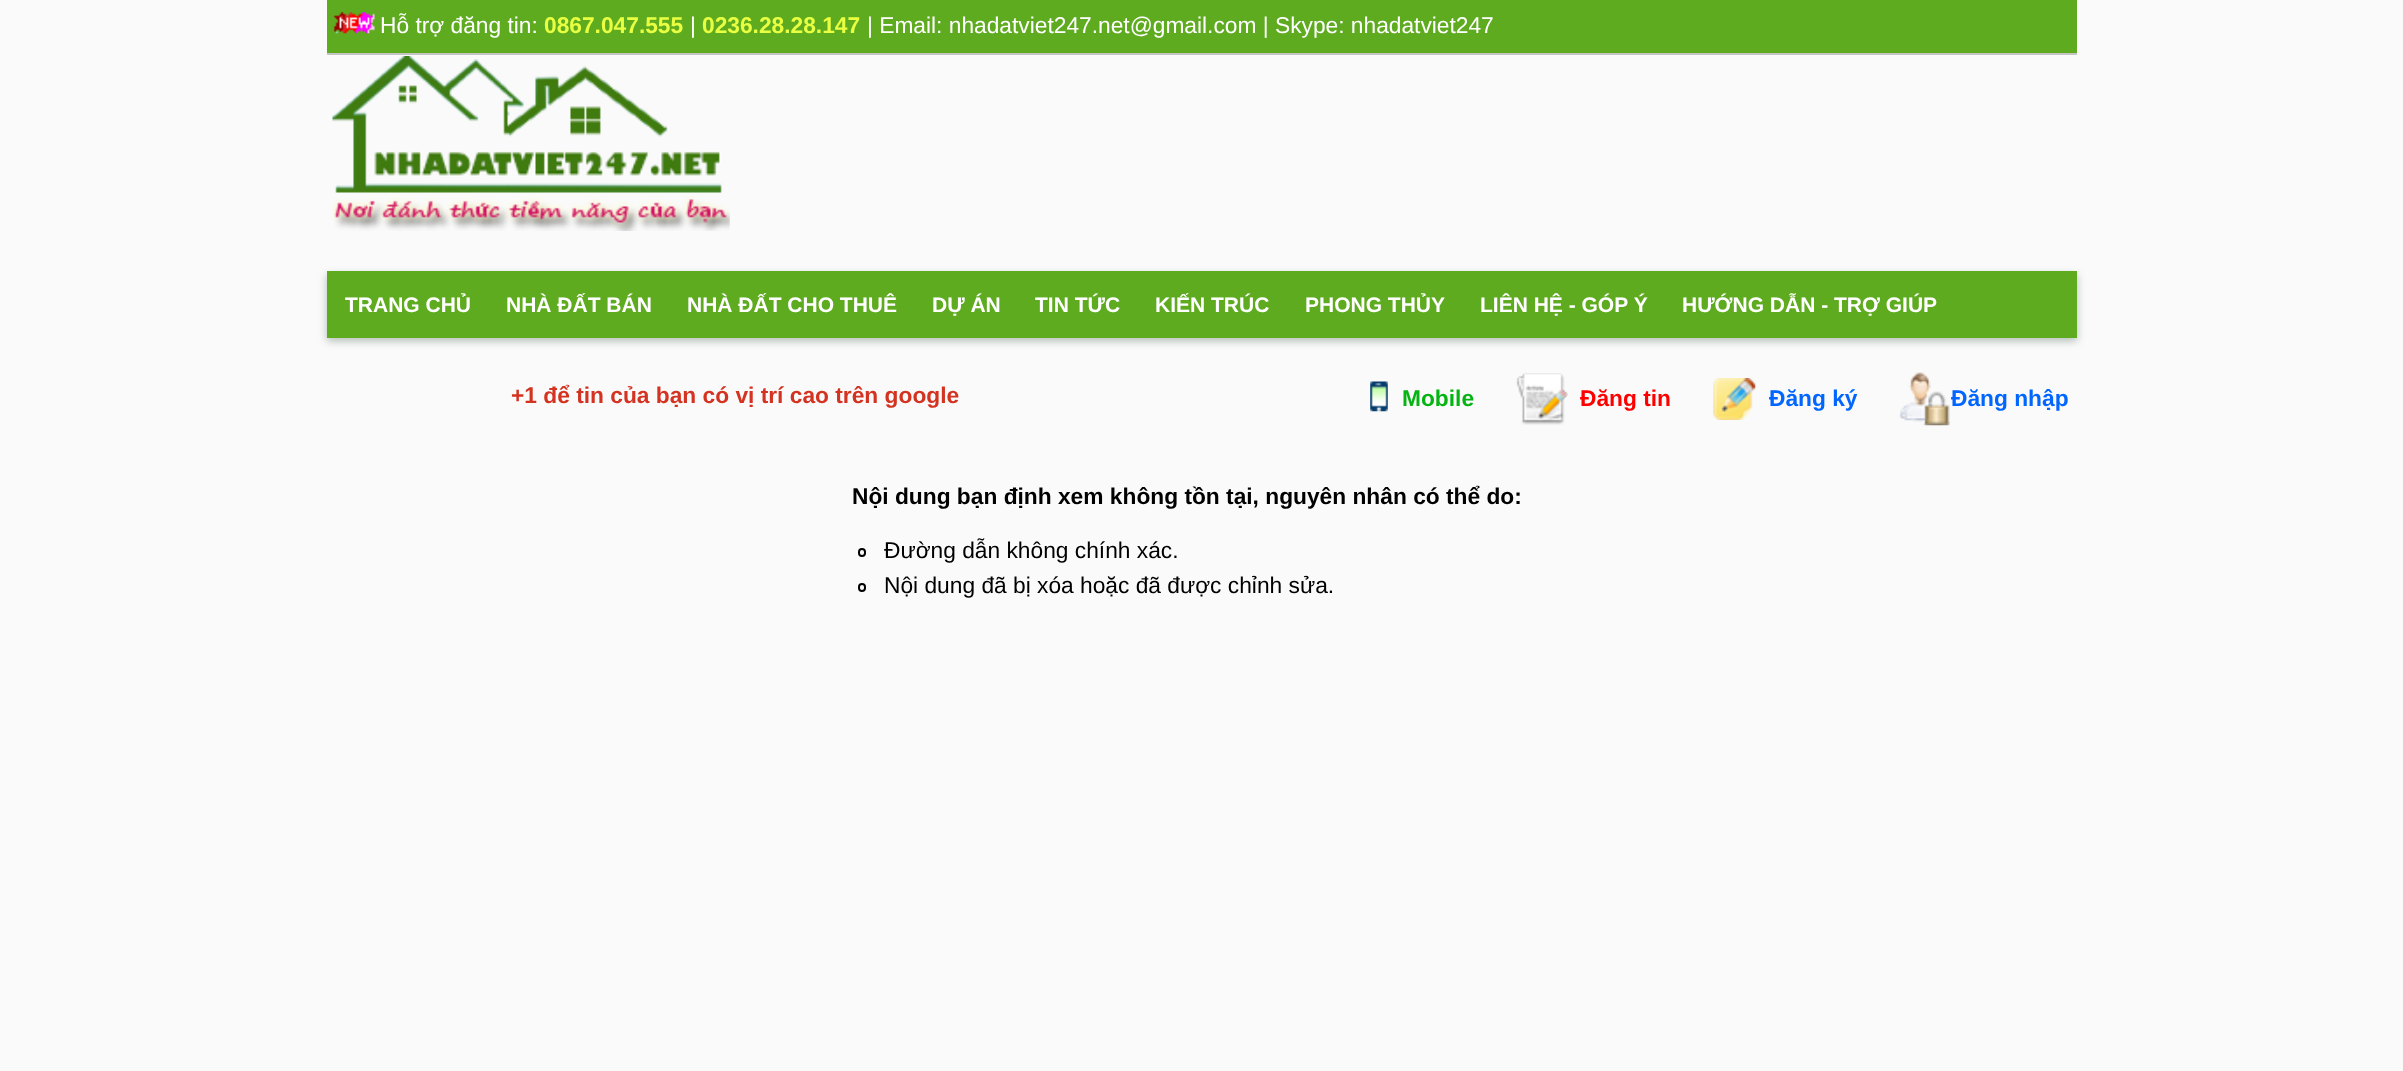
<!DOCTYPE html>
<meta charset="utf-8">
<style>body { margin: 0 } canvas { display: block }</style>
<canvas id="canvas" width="2403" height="1071"></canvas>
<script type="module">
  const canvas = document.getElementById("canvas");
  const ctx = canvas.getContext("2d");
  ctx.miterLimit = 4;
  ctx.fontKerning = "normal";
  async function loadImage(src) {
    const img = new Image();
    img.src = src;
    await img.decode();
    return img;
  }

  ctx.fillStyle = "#fafafa";
  ctx.fillRect(0, 0, 2403, 1071);
  ctx.fillStyle = "#5eab1f";
  ctx.fillRect(327, 0, 1750, 53);
  ctx.fillStyle = "#c4c4c4";
  ctx.fillRect(327, 53, 1750, 2);
  ctx.drawImage(await loadImage("img1.png"), 333, 12, 42, 22);
  ctx.font = "22.75px Liberation Sans";
  ctx.fillStyle = "#ffffff";
  ctx.fillText("Hỗ trợ đăng tin:", 380, 33);
  ctx.font = "bold 22.75px Liberation Sans";
  ctx.fillStyle = "#e8ff42";
  ctx.fillText("0867.047.555", 544, 33);
  ctx.font = "22.75px Liberation Sans";
  ctx.fillStyle = "#ffffff";
  ctx.fillText("|", 690, 33);
  ctx.font = "bold 22.75px Liberation Sans";
  ctx.fillStyle = "#e8ff42";
  ctx.fillText("0236.28.28.147", 702, 33);
  ctx.font = "22.75px Liberation Sans";
  ctx.fillStyle = "#ffffff";
  ctx.fillText("| Email: nhadatviet247.net@gmail.com | Skype: nhadatviet247", 867, 33);
  ctx.drawImage(await loadImage("img2.png"), 331, 56, 399, 175);
  ctx.fillStyle = "rgba(5, 51, 22, 0.3)";
  ctx.filter = "blur(4.5px)";
  ctx.beginPath();
  ctx.rect(327, 275, 1750, 66);
  ctx.fill();
  ctx.filter = "none";
  ctx.fillStyle = "#5eab1f";
  ctx.fillRect(327, 271, 1750, 67);
  ctx.font = "bold 21px Liberation Sans";
  ctx.fillStyle = "#ffffff";
  ctx.fillText("TRANG CHỦ", 345, 312);
  ctx.fillText("NHÀ ĐẤT BÁN", 506, 312);
  ctx.fillText("NHÀ ĐẤT CHO THUÊ", 687, 312);
  ctx.fillText("DỰ ÁN", 932, 312);
  ctx.fillText("TIN TỨC", 1035, 312);
  ctx.fillText("KIẾN TRÚC", 1155, 312);
  ctx.fillText("PHONG THỦY", 1305, 312);
  ctx.fillText("LIÊN HỆ - GÓP Ý", 1480, 312);
  ctx.fillText("HƯỚNG DẪN - TRỢ GIÚP", 1682, 312);
  ctx.font = "bold 22.75px Liberation Sans";
  ctx.fillStyle = "#d33320";
  ctx.fillText("+1 để tin của bạn có vị trí cao trên google", 511, 403);
  ctx.drawImage(await loadImage("img3.png"), 1370, 381, 18, 31);
  ctx.fillStyle = "#05b413";
  ctx.fillText("Mobile", 1402, 406);
  ctx.drawImage(await loadImage("img4.png"), 1516, 373, 52, 52);
  ctx.fillStyle = "#ff0000";
  ctx.fillText("Đăng tin", 1580, 406);
  ctx.drawImage(await loadImage("img5.png"), 1713, 378, 43, 42);
  ctx.fillStyle = "#0066ff";
  ctx.fillText("Đăng ký", 1769, 406);
  ctx.drawImage(await loadImage("img6.png"), 1899, 372, 51, 54);
  ctx.fillText("Đăng nhập", 1951, 406);
  ctx.fillStyle = "#000000";
  ctx.fillText("Nội dung bạn định xem không tồn tại, nguyên nhân có thể do:", 852, 504);
  ctx.beginPath();
  ctx.roundRect(859, 549, 6, 7, 3);
  ctx.strokeStyle = "#000000";
  ctx.lineWidth = 2;
  ctx.stroke();
  ctx.font = "22.75px Liberation Sans";
  ctx.fillText("Đường dẫn không chính xác.", 884, 558);
  ctx.beginPath();
  ctx.roundRect(859, 584, 6, 7, 3);
  ctx.stroke();
  ctx.fillText("Nội dung đã bị xóa hoặc đã được chỉnh sửa.", 884, 593);
</script>
